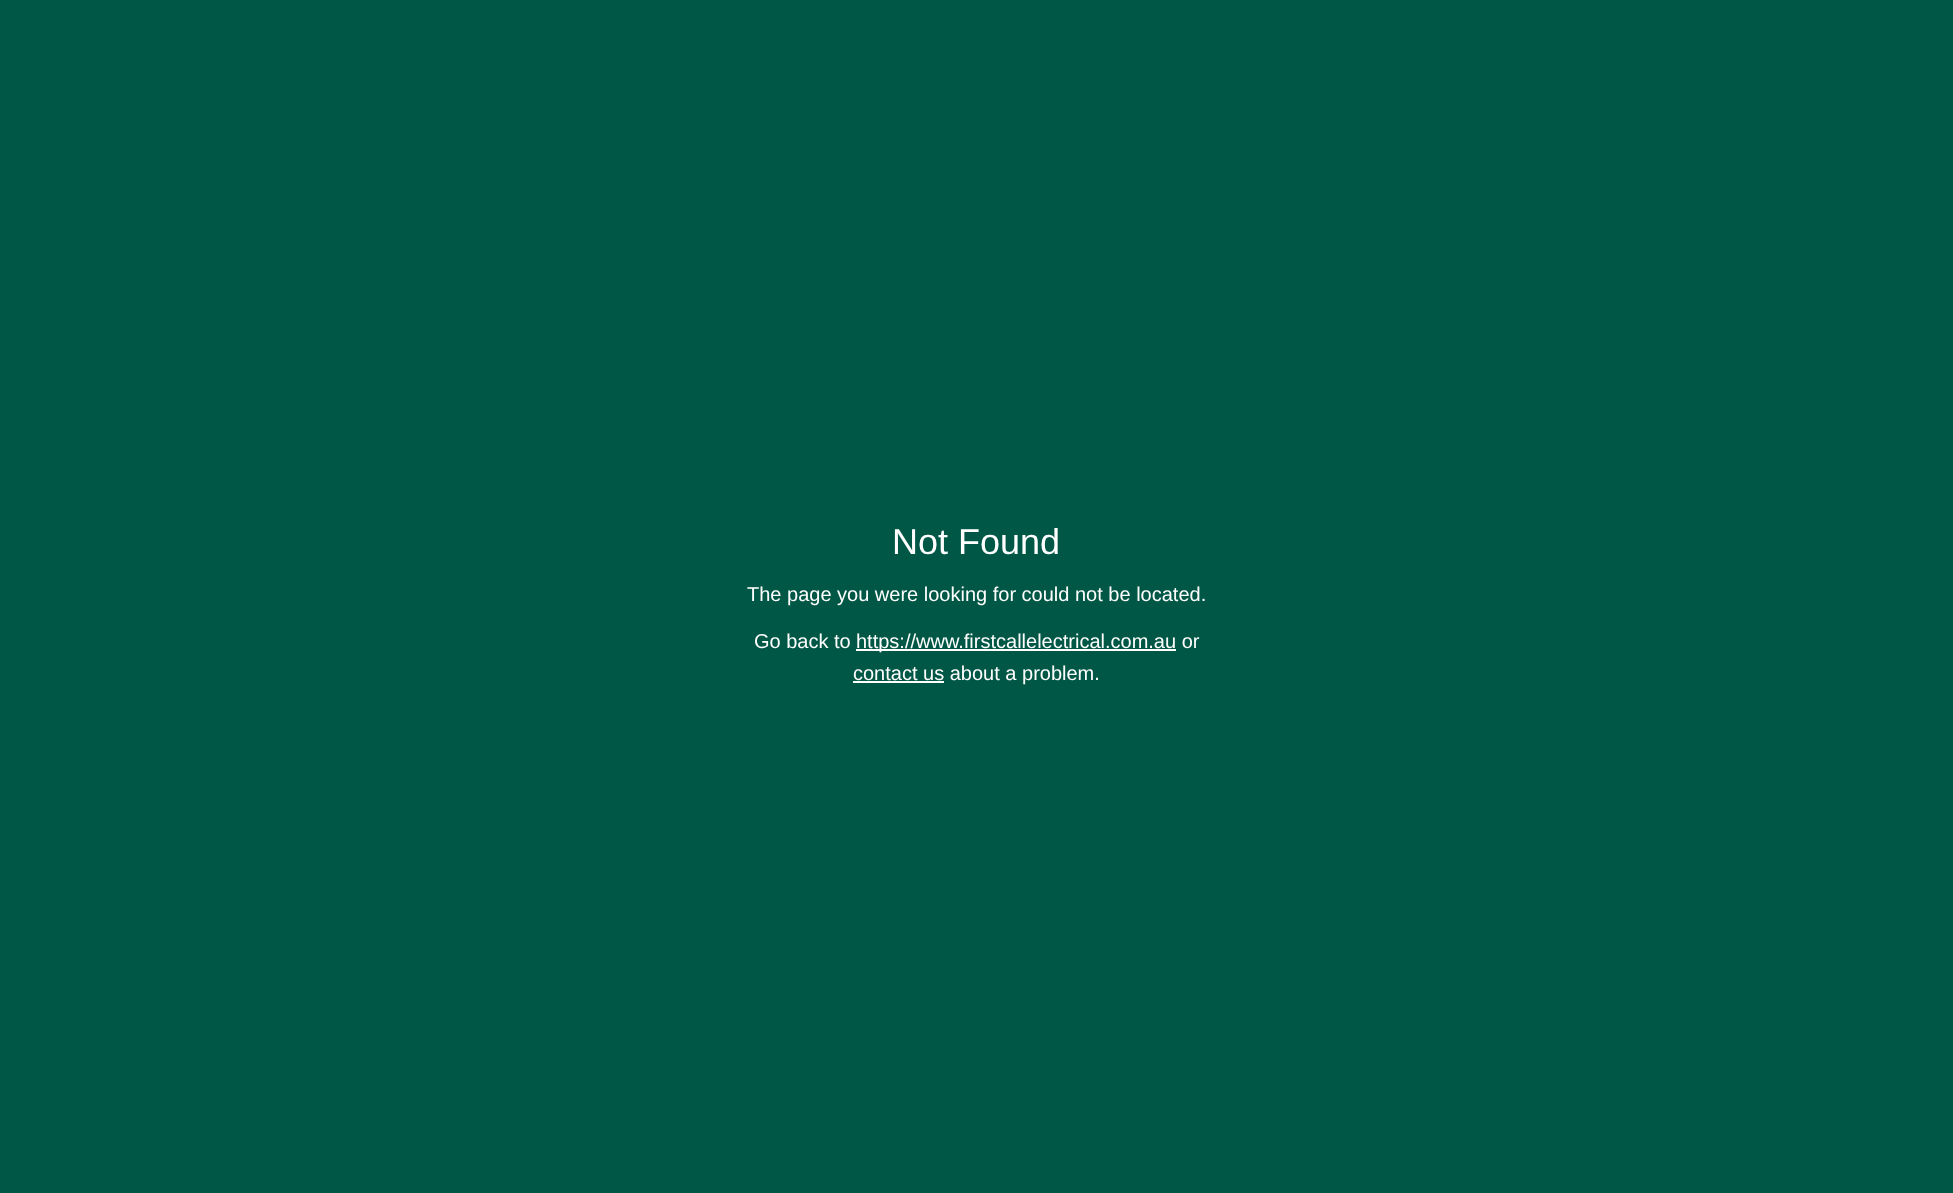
<!DOCTYPE html>
<meta charset="utf-8">
<style>body { margin: 0 } canvas { display: block }</style>
<canvas id="canvas" width="1953" height="1193"></canvas>
<script type="module">
  const canvas = document.getElementById("canvas");
  const ctx = canvas.getContext("2d");
  ctx.miterLimit = 4;
  ctx.fontKerning = "normal";

  ctx.fillStyle = "#005745";
  ctx.fillRect(0, 0, 1953, 1193);
  ctx.font = "36px Liberation Sans";
  ctx.fillStyle = "#ffffff";
  ctx.fillText("Not Found", 892, 554);
  ctx.font = "20px Liberation Sans";
  ctx.fillText("The page you were looking for could not be located.", 747, 601);
  ctx.fillText("Go back to", 754, 648);
  ctx.fillRect(856, 649, 320, 2);
  ctx.fillText("https://www.firstcallelectrical.com.au or", 856, 648);
  ctx.fillRect(853, 681, 91, 2);
  ctx.fillText("contact us about a problem.", 853, 680);
</script>
